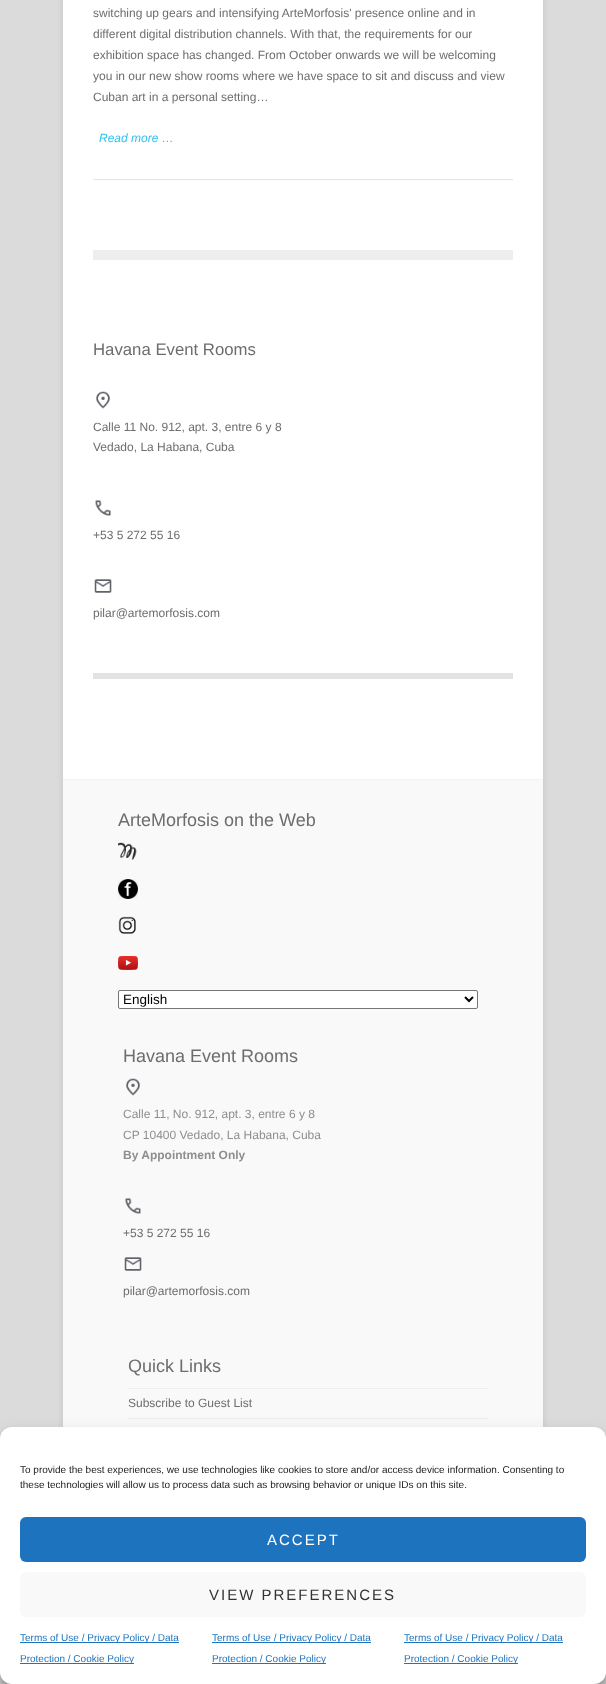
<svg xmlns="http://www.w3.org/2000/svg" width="606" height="1684">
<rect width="100%" height="100%" fill="#dbdbdb"/>
<rect x="63" y="-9" width="480" height="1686" fill="#0000001a" filter="blur(3px)"/>
<rect x="63" width="480" height="779" fill="#fff"/>
<rect x="93" y="179" width="420" height="1" fill="#e3e3e3"/>
<text x="93" y="17" style="font-family:Liberation Sans;font-size:12px;fill:#6d6d6b">switching up gears and intensifying ArteMorfosis' presence online and in</text>
<text x="93" y="38" style="font-family:Liberation Sans;font-size:12px;fill:#6d6d6b">different digital distribution channels. With that, the requirements for our</text>
<text x="93" y="59" style="font-family:Liberation Sans;font-size:12px;fill:#6d6d6b">exhibition space has changed. From October onwards we will be welcoming</text>
<text x="93" y="80" style="font-family:Liberation Sans;font-size:12px;fill:#6d6d6b">you in our new show rooms where we have space to sit and discuss and view</text>
<text x="93" y="101" style="font-family:Liberation Sans;font-size:12px;fill:#6d6d6b">Cuban art in a personal setting…</text>
<text x="99" y="142" style="font-family:Liberation Sans;font-size:12px;font-style:italic;fill:#2ec2f1">Read more …</text>
<rect x="93" y="250" width="420" height="10" fill="#eee"/>
<text x="93" y="355" style="font-family:Liberation Sans;font-size:16.75px;fill:#6d6d6b">Havana Event Rooms</text>
<image x="96" y="391" width="14" height="18" href="media/1.png"/>
<text x="93" y="431" style="font-family:Liberation Sans;font-size:12px;fill:#6d6d6b">Calle 11 No. 912, apt. 3, entre 6 y 8</text>
<text x="93" y="451" style="font-family:Liberation Sans;font-size:12px;fill:#6d6d6b">Vedado, La Habana, Cuba</text>
<image x="95" y="500" width="16" height="16" href="media/2.png"/>
<text x="93" y="539" style="font-family:Liberation Sans;font-size:12px;fill:#6d6d6b">+53 5 272 55 16</text>
<image x="94" y="579" width="18" height="14" href="media/3.png"/>
<text x="93" y="617" style="font-family:Liberation Sans;font-size:12px;fill:#6d6d6b">pilar@artemorfosis.com</text>
<rect x="93" y="673" width="420" height="6" fill="#e3e3e3"/>
<rect x="63" y="780" width="480" height="647" fill="#faf9f9"/>
<rect x="63" y="779" width="480" height="1" fill="#f3f2f2"/>
<text x="118" y="826" style="font-family:Liberation Sans;font-size:18px;fill:#6d6d6b">ArteMorfosis on the Web</text>
<image x="118" y="842" width="19" height="18" href="media/4.png"/>
<image x="118" y="879" width="20" height="20" href="media/5.png"/>
<image x="118" y="916" width="18" height="18" href="media/6.png"/>
<image x="118" y="956" width="20" height="14" href="media/7.png"/>
<rect x="118.5" y="990.5" width="359" height="18" rx="1.5" fill="#fff" stroke="#767676"/>
<path d="M465 997l4 4l4-4" fill="none" stroke="#000" stroke-width="2"/>
<text x="123" y="1004" style="font-family:Liberation Sans;font-size:13.5px;fill:#000">English</text>
<text x="123" y="1062" style="font-family:Liberation Sans;font-size:18px;fill:#6d6d6b">Havana Event Rooms</text>
<image x="126" y="1078" width="14" height="18" href="media/8.png"/>
<text x="123" y="1118" style="font-family:Liberation Sans;font-size:12px;fill:#8e8e8d">Calle 11, No. 912, apt. 3, entre 6 y 8</text>
<text x="123" y="1139" style="font-family:Liberation Sans;font-size:12px;fill:#8e8e8d">CP 10400 Vedado, La Habana, Cuba</text>
<text x="123" y="1159" style="font-family:Liberation Sans;font-size:12px;font-weight:bold;fill:#8e8e8d">By Appointment Only</text>
<image x="125" y="1198" width="16" height="16" href="media/9.png"/>
<text x="123" y="1237" style="font-family:Liberation Sans;font-size:12px;fill:#6d6d6b">+53 5 272 55 16</text>
<image x="124" y="1257" width="18" height="14" href="media/10.png"/>
<text x="123" y="1295" style="font-family:Liberation Sans;font-size:12px;fill:#6d6d6b">pilar@artemorfosis.com</text>
<text x="128" y="1372" style="font-family:Liberation Sans;font-size:18px;fill:#6d6d6b">Quick Links</text>
<rect x="128" y="1388" width="360" height="1" fill="#efeded"/>
<rect x="128" y="1418" width="360" height="1" fill="#efeded"/>
<text x="128" y="1407" style="font-family:Liberation Sans;font-size:12px;fill:#6d6d6b">Subscribe to Guest List</text>
<rect y="1433" width="606" height="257" rx="12" fill="#0000003b" filter="blur(3px)"/>
<rect y="1437" width="606" height="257" rx="12" fill="#00000030" filter="blur(10px)"/>
<rect y="1427" width="606" height="257" rx="12" fill="#fff"/>
<text x="20" y="1473" style="font-family:Liberation Sans;font-size:10px;fill:#222">To provide the best experiences, we use technologies like cookies to store and/or access device information. Consenting to</text>
<text x="20" y="1488" style="font-family:Liberation Sans;font-size:10px;fill:#222">these technologies will allow us to process data such as browsing behavior or unique IDs on this site.</text>
<rect x="20" y="1517" width="566" height="45" rx="6" fill="#1e73be"/>
<text x="267" y="1545" style="font-family:Liberation Sans;font-size:15px;letter-spacing:2px;fill:#fff">ACCEPT</text>
<rect x="20" y="1572" width="566" height="45" rx="6" fill="#f9f9f9"/>
<text x="209" y="1600" style="font-family:Liberation Sans;font-size:15px;letter-spacing:2px;fill:#333">VIEW PREFERENCES</text>
<rect x="20" y="1642" width="159" height="1" fill="#1e73be"/>
<text x="20" y="1641" style="font-family:Liberation Sans;font-size:10px;fill:#1e73be">Terms of Use / Privacy Policy / Data</text>
<rect x="20" y="1663" width="114" height="1" fill="#1e73be"/>
<text x="20" y="1662" style="font-family:Liberation Sans;font-size:10px;fill:#1e73be">Protection / Cookie Policy</text>
<rect x="212" y="1642" width="159" height="1" fill="#1e73be"/>
<text x="212" y="1641" style="font-family:Liberation Sans;font-size:10px;fill:#1e73be">Terms of Use / Privacy Policy / Data</text>
<rect x="212" y="1663" width="114" height="1" fill="#1e73be"/>
<text x="212" y="1662" style="font-family:Liberation Sans;font-size:10px;fill:#1e73be">Protection / Cookie Policy</text>
<rect x="404" y="1642" width="159" height="1" fill="#1e73be"/>
<text x="404" y="1641" style="font-family:Liberation Sans;font-size:10px;fill:#1e73be">Terms of Use / Privacy Policy / Data</text>
<rect x="404" y="1663" width="114" height="1" fill="#1e73be"/>
<text x="404" y="1662" style="font-family:Liberation Sans;font-size:10px;fill:#1e73be">Protection / Cookie Policy</text>
</svg>
